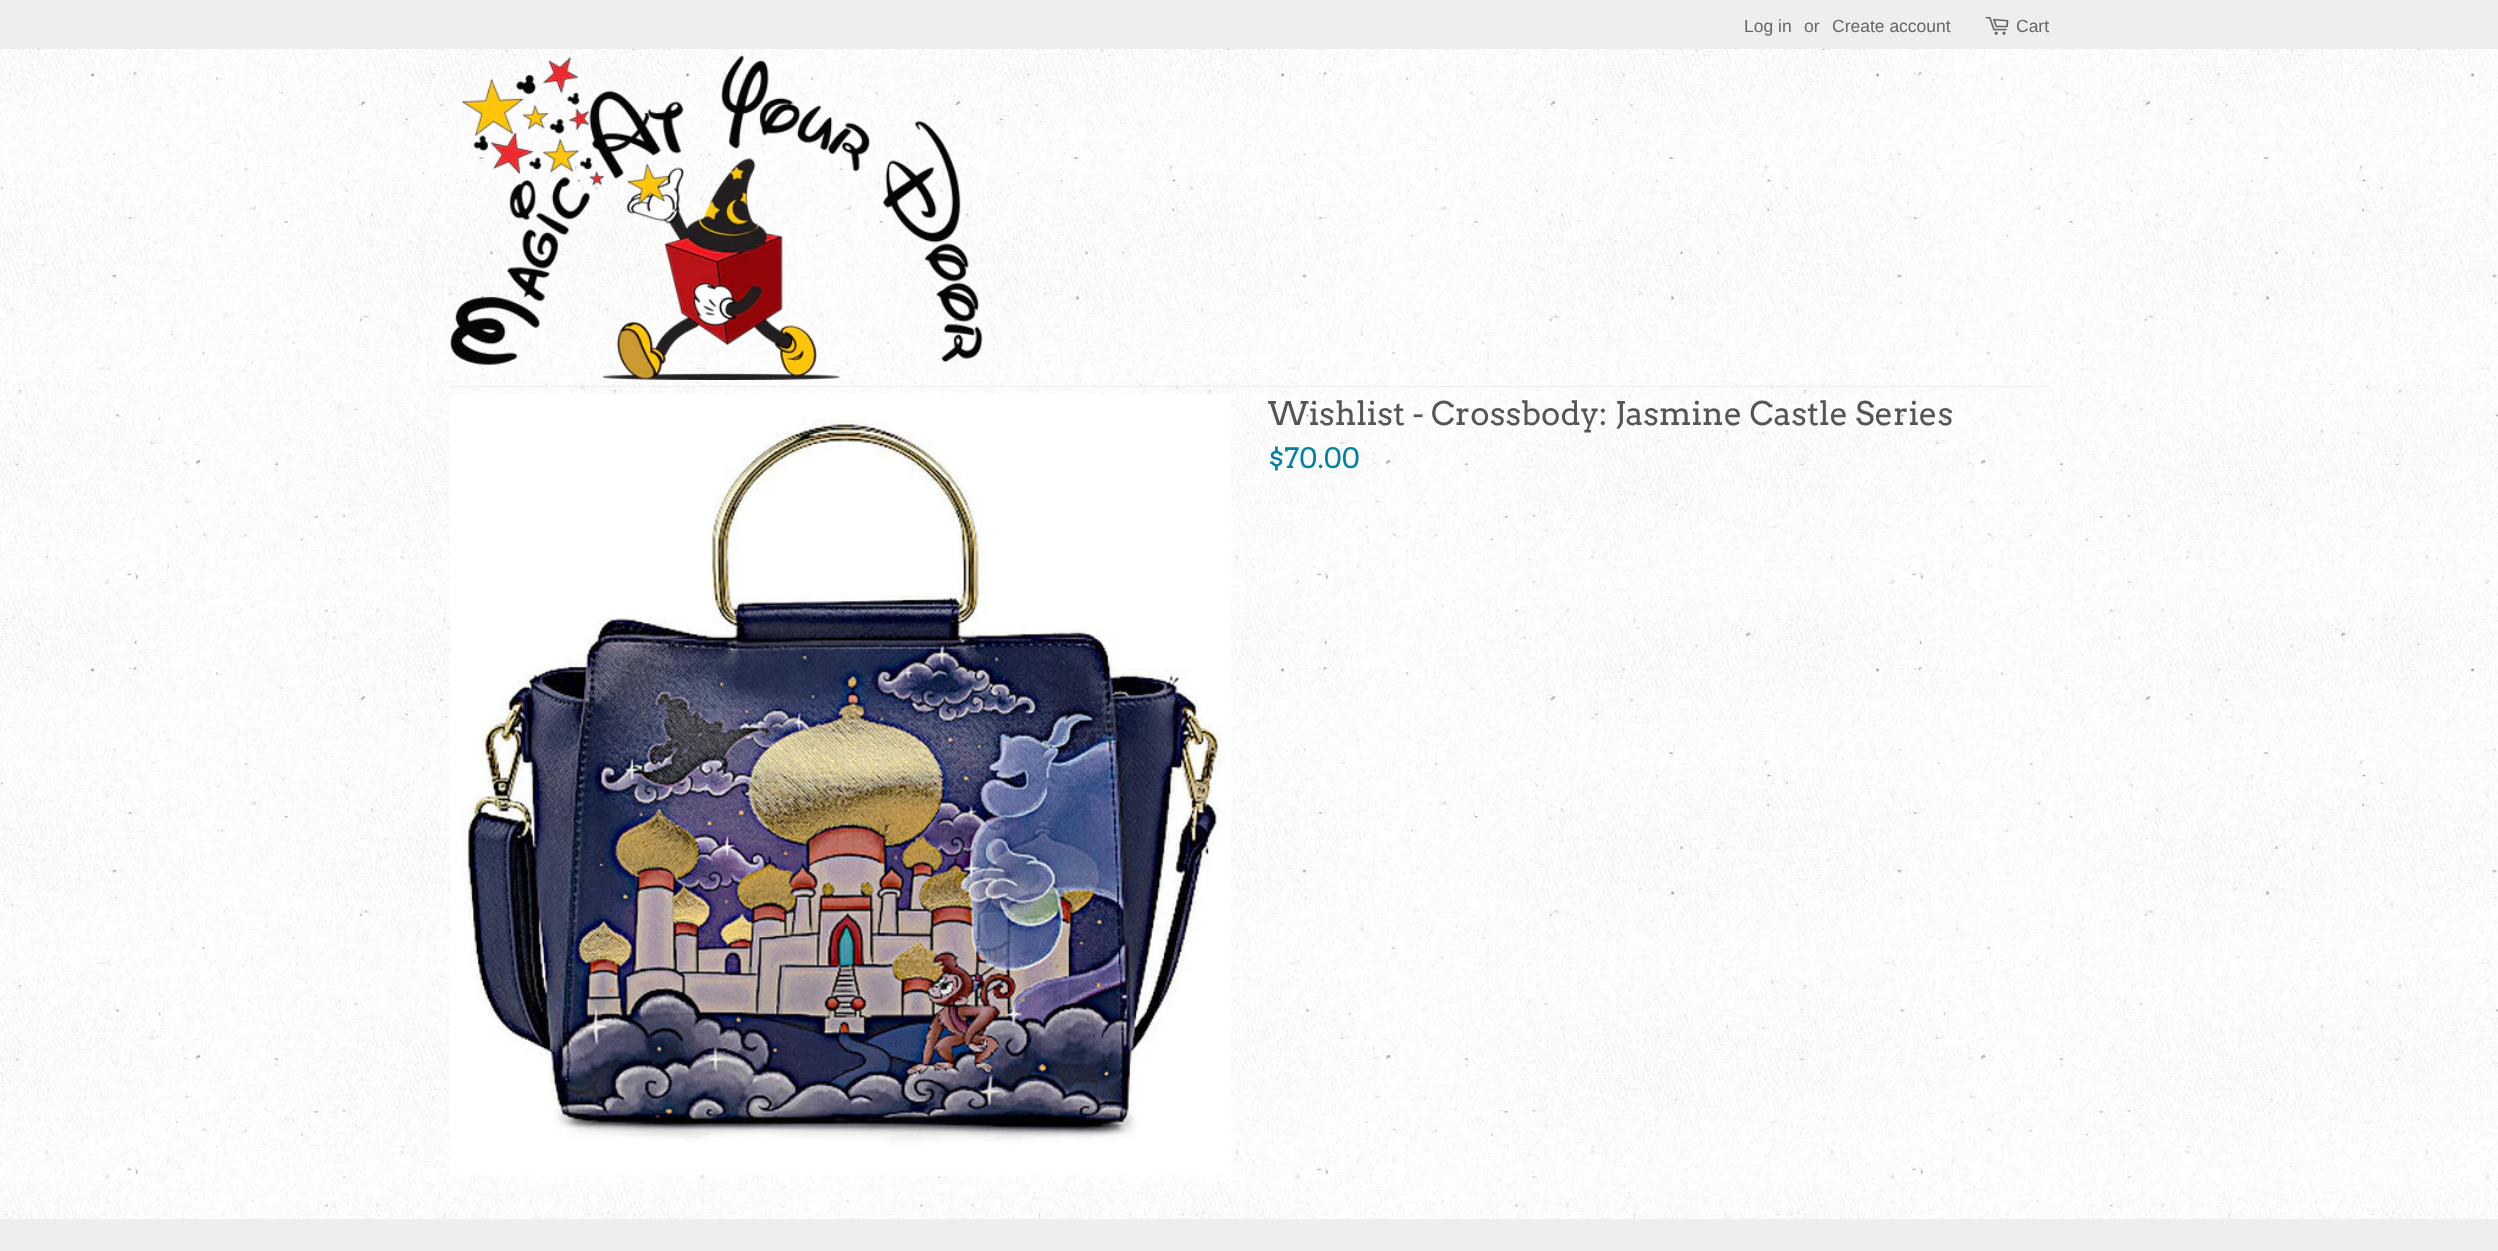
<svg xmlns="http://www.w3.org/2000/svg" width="2498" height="1251">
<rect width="100%" height="100%" fill="#fff"/>
<image x="0" y="49" width="2498" height="1170" href="media/1.png"/>
<rect width="2498" height="49" fill="#eee"/>
<text x="1744" y="32" style="font-family:Liberation Sans;font-size:17.5px;fill:#666">Log in</text>
<text x="1804" y="32" style="font-family:Liberation Sans;font-size:17.5px;fill:#666">or</text>
<text x="1832" y="32" style="font-family:Liberation Sans;font-size:17.5px;fill:#666">Create account</text>
<image x="1985" y="16" width="24" height="19" href="media/2.png"/>
<text x="2016" y="32" style="font-family:Liberation Sans;font-size:17.5px;fill:#666">Cart</text>
<rect x="450" y="386" width="1600" height="1" fill="#eee"/>
<image x="450" y="55" width="533" height="325" href="media/3.png"/>
<image x="450" y="393" width="782" height="782" href="media/4.png"/>
<text x="1268" y="425" style="font-family:Arvo;font-size:32.5px;fill:#555">Wishlist - Crossbody: Jasmine Castle Series</text>
<text x="1268" y="468" style="font-family:Arvo;font-size:28px;fill:#0081a3">$70.00</text>
<rect y="1219" width="2498" height="32" fill="#eee"/>
</svg>
